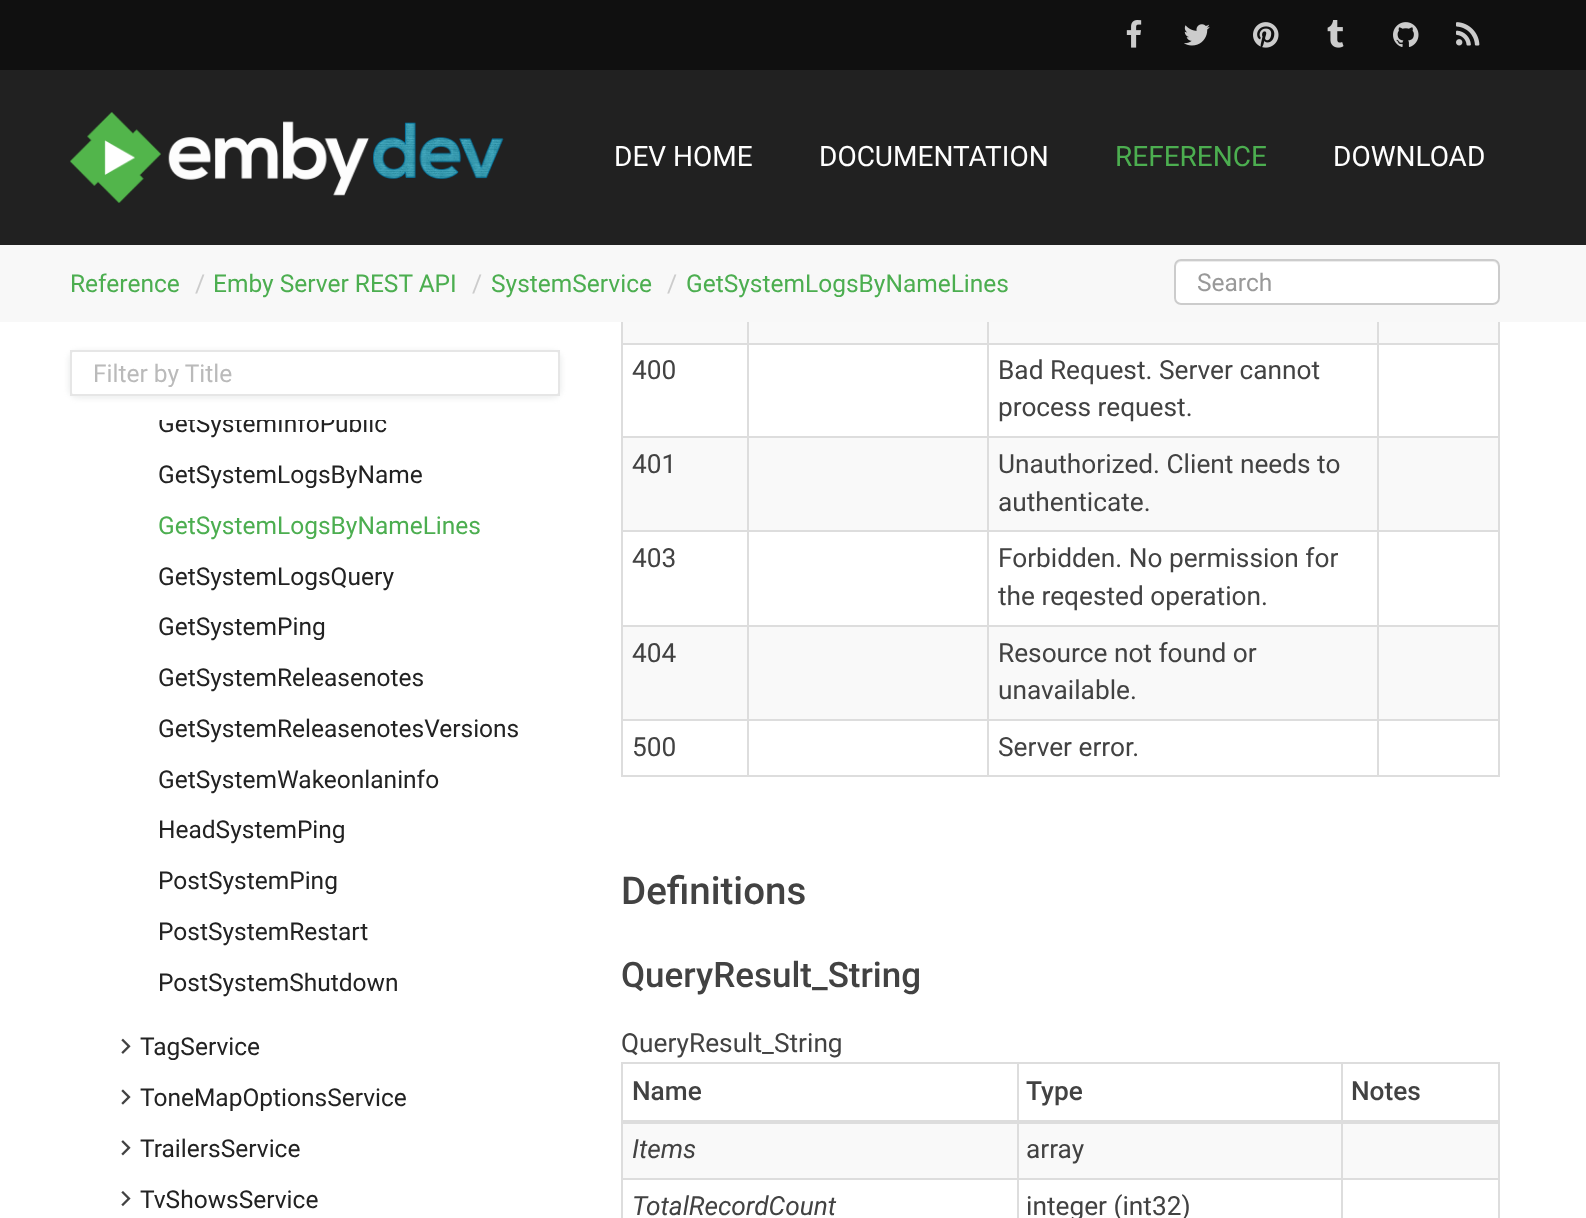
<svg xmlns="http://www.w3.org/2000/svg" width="1586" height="1218">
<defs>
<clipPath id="clip1"><path d="M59 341h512v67h-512zm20 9h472c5 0 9 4 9 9v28c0 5-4 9-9 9h-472c-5 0-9-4-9-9v-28c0-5 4-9 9-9z" clip-rule="evenodd"/></clipPath>
<clipPath id="clip2"><rect x="93" y="359" width="444" height="28"/></clipPath>
<clipPath id="clip3"><rect x="70" y="420" width="490" height="798"/></clipPath>
</defs>
<rect width="100%" height="100%" fill="#fff"/>
<rect y="70" width="1586" height="175" fill="#212121"/>
<rect width="1586" height="70" fill="#101010"/>
<image x="1126" y="20" width="16" height="28" href="media/1.png"/>
<image x="1184" y="24" width="26" height="22" href="media/2.png"/>
<image x="1253" y="22" width="26" height="26" href="media/3.png"/>
<image x="1327" y="20" width="17" height="28" href="media/4.png"/>
<image x="1393" y="22" width="26" height="25" href="media/5.png"/>
<image x="1456" y="22" width="24" height="24" href="media/6.png"/>
<image x="70" y="112" width="434" height="91" href="media/7.png"/>
<text x="614" y="166" style="font-family:Roboto;font-size:28px;fill:#fefefe">DEV HOME</text>
<text x="819" y="166" style="font-family:Roboto;font-size:28px;fill:#fefefe">DOCUMENTATION</text>
<text x="1115" y="166" style="font-family:Roboto;font-size:28px;fill:#4cae50">REFERENCE</text>
<text x="1333" y="166" style="font-family:Roboto;font-size:28px;fill:#fefefe">DOWNLOAD</text>
<rect y="245" width="1586" height="77" fill="#f8f8f8"/>
<text x="70" y="292" style="font-family:Roboto;font-size:24.5px;fill:#4cae50">Reference</text>
<text x="195" y="292" style="font-family:Roboto;font-size:24.5px;fill:#ccc">/</text>
<text x="213" y="292" style="font-family:Roboto;font-size:24.5px;fill:#4cae50">Emby Server REST API</text>
<text x="472" y="292" style="font-family:Roboto;font-size:24.5px;fill:#ccc">/</text>
<text x="491" y="292" style="font-family:Roboto;font-size:24.5px;fill:#4cae50">SystemService</text>
<text x="667" y="292" style="font-family:Roboto;font-size:24.5px;fill:#ccc">/</text>
<text x="686" y="292" style="font-family:Roboto;font-size:24.5px;fill:#4cae50">GetSystemLogsByNameLines</text>
<rect x="1174" y="259" width="326" height="46" rx="7" fill="#fff"/>
<path d="M1181 262h312c3 0 5 3 5 6v-2c0-3-2-5-5-5h-312c-3 0-5 2-5 5v2c0-3 2-6 5-6z" fill="#ececec"/>
<rect x="1175" y="260" width="324" height="44" rx="6" fill="none" stroke="#ccc" stroke-width="2"/>
<text x="1197" y="291" style="font-family:Roboto;font-size:24.5px;fill:#999">Search</text>
<g clip-path="url(#clip1)">
<rect x="68" y="350" width="494" height="49" rx="11" fill="#9ea0a229" filter="blur(2.5px)"/>
</g>
<rect x="71" y="351" width="488" height="44" fill="none" stroke="#e6e6e6" stroke-width="2"/>
<g clip-path="url(#clip2)">
<text x="93" y="382" style="font-family:Roboto;font-size:24.5px;fill:#bababa">Filter by Title</text>
</g>
<g clip-path="url(#clip3)">
<text x="158" y="432" style="font-family:Roboto;font-size:24.5px;fill:#222">GetSystemInfoPublic</text>
</g>
<text x="158" y="483" style="font-family:Roboto;font-size:24.5px;fill:#222">GetSystemLogsByName</text>
<text x="158" y="534" style="font-family:Roboto;font-size:24.5px;fill:#4cae50">GetSystemLogsByNameLines</text>
<text x="158" y="585" style="font-family:Roboto;font-size:24.5px;fill:#222">GetSystemLogsQuery</text>
<text x="158" y="635" style="font-family:Roboto;font-size:24.5px;fill:#222">GetSystemPing</text>
<text x="158" y="686" style="font-family:Roboto;font-size:24.5px;fill:#222">GetSystemReleasenotes</text>
<text x="158" y="737" style="font-family:Roboto;font-size:24.5px;fill:#222">GetSystemReleasenotesVersions</text>
<text x="158" y="788" style="font-family:Roboto;font-size:24.5px;fill:#222">GetSystemWakeonlaninfo</text>
<text x="158" y="838" style="font-family:Roboto;font-size:24.5px;fill:#222">HeadSystemPing</text>
<text x="158" y="889" style="font-family:Roboto;font-size:24.5px;fill:#222">PostSystemPing</text>
<text x="158" y="940" style="font-family:Roboto;font-size:24.5px;fill:#222">PostSystemRestart</text>
<text x="158" y="991" style="font-family:Roboto;font-size:24.5px;fill:#222">PostSystemShutdown</text>
<image x="121" y="1038" width="10" height="16" href="media/8.png"/>
<text x="140" y="1055" style="font-family:Roboto;font-size:24.5px;fill:#222">TagService</text>
<image x="121" y="1089" width="10" height="16" href="media/9.png"/>
<text x="140" y="1106" style="font-family:Roboto;font-size:24.5px;fill:#222">ToneMapOptionsService</text>
<image x="121" y="1140" width="10" height="16" href="media/10.png"/>
<text x="140" y="1157" style="font-family:Roboto;font-size:24.5px;fill:#222">TrailersService</text>
<image x="121" y="1191" width="10" height="16" href="media/11.png"/>
<text x="140" y="1208" style="font-family:Roboto;font-size:24.5px;fill:#222">TvShowsService</text>
<rect x="1498" y="322" width="2" height="455" fill="#ddd"/>
<rect x="621" y="775" width="879" height="2" fill="#ddd"/>
<rect x="621" y="322" width="2" height="455" fill="#ddd"/>
<rect x="623" y="322" width="875" height="21" fill="#f9f9f9"/>
<rect x="1377" y="343" width="123" height="2" fill="#ddd"/>
<rect x="1377" y="436" width="123" height="2" fill="#ddd"/>
<rect x="623" y="438" width="875" height="92" fill="#f9f9f9"/>
<rect x="1377" y="530" width="123" height="2" fill="#ddd"/>
<rect x="1377" y="625" width="123" height="2" fill="#ddd"/>
<rect x="623" y="627" width="875" height="92" fill="#f9f9f9"/>
<rect x="1377" y="719" width="123" height="2" fill="#ddd"/>
<rect x="1377" y="719" width="2" height="58" fill="#ddd"/>
<rect x="987" y="719" width="392" height="2" fill="#ddd"/>
<rect x="1377" y="625" width="2" height="96" fill="#ddd"/>
<rect x="987" y="625" width="392" height="2" fill="#ddd"/>
<rect x="1377" y="530" width="2" height="97" fill="#ddd"/>
<rect x="987" y="530" width="392" height="2" fill="#ddd"/>
<rect x="1377" y="436" width="2" height="96" fill="#ddd"/>
<rect x="987" y="436" width="392" height="2" fill="#ddd"/>
<rect x="1377" y="343" width="2" height="95" fill="#ddd"/>
<rect x="987" y="343" width="392" height="2" fill="#ddd"/>
<rect x="987" y="719" width="2" height="58" fill="#ddd"/>
<rect x="747" y="719" width="242" height="2" fill="#ddd"/>
<rect x="987" y="625" width="2" height="96" fill="#ddd"/>
<rect x="747" y="625" width="242" height="2" fill="#ddd"/>
<rect x="987" y="530" width="2" height="97" fill="#ddd"/>
<rect x="747" y="530" width="242" height="2" fill="#ddd"/>
<rect x="987" y="436" width="2" height="96" fill="#ddd"/>
<rect x="747" y="436" width="242" height="2" fill="#ddd"/>
<rect x="987" y="343" width="2" height="95" fill="#ddd"/>
<rect x="747" y="343" width="242" height="2" fill="#ddd"/>
<rect x="747" y="719" width="2" height="58" fill="#ddd"/>
<rect x="621" y="719" width="128" height="2" fill="#ddd"/>
<rect x="747" y="625" width="2" height="96" fill="#ddd"/>
<rect x="621" y="625" width="128" height="2" fill="#ddd"/>
<rect x="747" y="530" width="2" height="97" fill="#ddd"/>
<rect x="621" y="530" width="128" height="2" fill="#ddd"/>
<rect x="747" y="436" width="2" height="96" fill="#ddd"/>
<rect x="621" y="436" width="128" height="2" fill="#ddd"/>
<rect x="747" y="343" width="2" height="95" fill="#ddd"/>
<rect x="621" y="343" width="128" height="2" fill="#ddd"/>
<rect x="747" y="322" width="2" height="23" fill="#ddd"/>
<rect x="987" y="322" width="2" height="23" fill="#ddd"/>
<rect x="1377" y="322" width="2" height="23" fill="#ddd"/>
<text x="632" y="379" style="font-family:Roboto;font-size:26.25px;fill:#424242">400</text>
<text x="998" y="379" style="font-family:Roboto;font-size:26.25px;fill:#424242">Bad Request. Server cannot</text>
<text x="998" y="416" style="font-family:Roboto;font-size:26.25px;fill:#424242">process request.</text>
<text x="632" y="473" style="font-family:Roboto;font-size:26.25px;fill:#424242">401</text>
<text x="998" y="473" style="font-family:Roboto;font-size:26.25px;fill:#424242">Unauthorized. Client needs to</text>
<text x="998" y="511" style="font-family:Roboto;font-size:26.25px;fill:#424242">authenticate.</text>
<text x="632" y="567" style="font-family:Roboto;font-size:26.25px;fill:#424242">403</text>
<text x="998" y="567" style="font-family:Roboto;font-size:26.25px;fill:#424242">Forbidden. No permission for</text>
<text x="998" y="605" style="font-family:Roboto;font-size:26.25px;fill:#424242">the reqested operation.</text>
<text x="632" y="662" style="font-family:Roboto;font-size:26.25px;fill:#424242">404</text>
<text x="998" y="662" style="font-family:Roboto;font-size:26.25px;fill:#424242">Resource not found or</text>
<text x="998" y="699" style="font-family:Roboto;font-size:26.25px;fill:#424242">unavailable.</text>
<text x="632" y="756" style="font-family:Roboto;font-size:26.25px;fill:#424242">500</text>
<text x="998" y="756" style="font-family:Roboto;font-size:26.25px;fill:#424242">Server error.</text>
<text x="621" y="904" style="font-family:Roboto;font-size:38.5px;font-weight:500;fill:#424242">Definitions</text>
<text x="621" y="987" style="font-family:Roboto;font-size:35px;font-weight:500;fill:#424242">QueryResult_String</text>
<text x="621" y="1052" style="font-family:Roboto;font-size:26.25px;fill:#424242">QueryResult_String</text>
<rect x="621" y="1062" width="879" height="2" fill="#ddd"/>
<rect x="1498" y="1062" width="2" height="156" fill="#ddd"/>
<rect x="621" y="1062" width="2" height="156" fill="#ddd"/>
<text x="632" y="1100" style="font-family:Roboto;font-size:26.25px;font-weight:500;fill:#424242">Name</text>
<text x="1026" y="1100" style="font-family:Roboto;font-size:26.25px;font-weight:500;fill:#424242">Type</text>
<rect x="623" y="1124" width="875" height="54" fill="#f9f9f9"/>
<rect x="1341" y="1178" width="159" height="2" fill="#ddd"/>
<rect x="1341" y="1178" width="2" height="40" fill="#ddd"/>
<rect x="1017" y="1178" width="325" height="2" fill="#ddd"/>
<rect x="1017" y="1178" width="2" height="40" fill="#ddd"/>
<rect x="621" y="1178" width="398" height="2" fill="#ddd"/>
<rect x="1017" y="1062" width="2" height="118" fill="#ddd"/>
<rect x="1341" y="1062" width="2" height="118" fill="#ddd"/>
<rect x="621" y="1120" width="879" height="4" fill="#ddd"/>
<text x="1351" y="1100" style="font-family:Roboto;font-size:26.25px;font-weight:500;fill:#424242">Notes</text>
<text x="632" y="1158" style="font-family:Roboto;font-size:26.25px;font-style:italic;fill:#424242">Items</text>
<text x="1026" y="1158" style="font-family:Roboto;font-size:26.25px;fill:#424242">array</text>
<text x="632" y="1215" style="font-family:Roboto;font-size:26.25px;font-style:italic;fill:#424242">TotalRecordCount</text>
<text x="1026" y="1215" style="font-family:Roboto;font-size:26.25px;fill:#424242">integer (int32)</text>
</svg>
